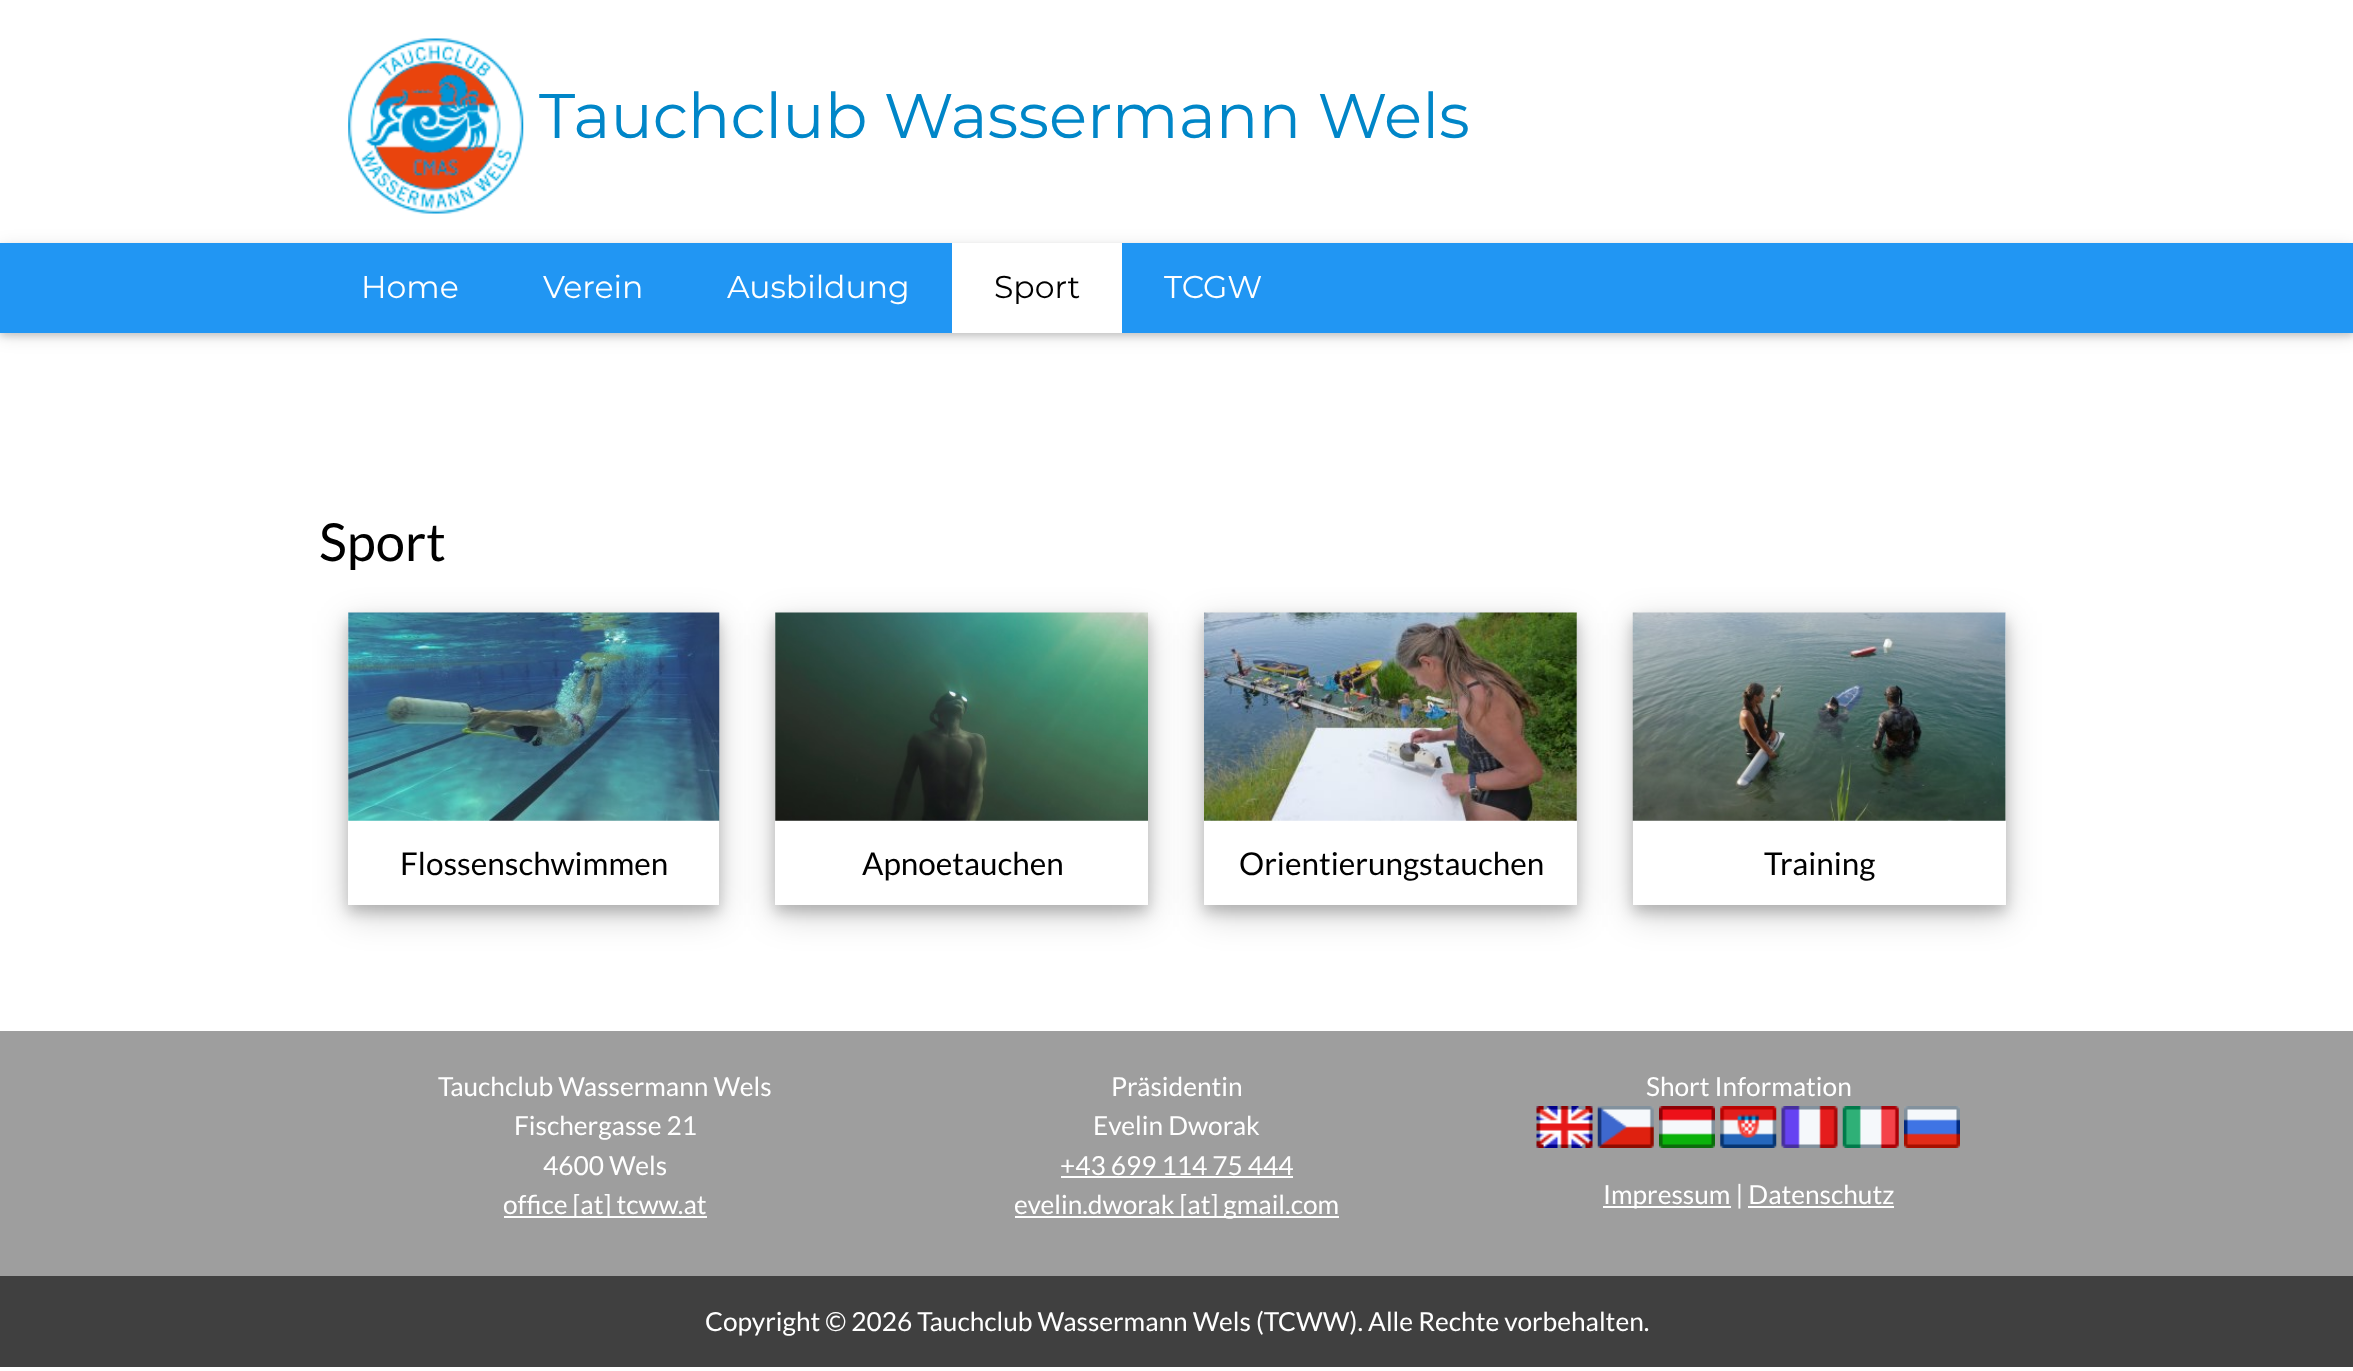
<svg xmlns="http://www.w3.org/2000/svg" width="2353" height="1371">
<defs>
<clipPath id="clip1"><path d="M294 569h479v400h-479zm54 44h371v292h-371z" clip-rule="evenodd"/></clipPath>
<clipPath id="clip2"><path d="M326 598h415v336h-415zm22 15h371v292h-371z" clip-rule="evenodd"/></clipPath>
<clipPath id="clip3"><path d="M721 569h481v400h-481zm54 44h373v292h-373z" clip-rule="evenodd"/></clipPath>
<clipPath id="clip4"><path d="M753 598h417v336h-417zm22 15h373v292h-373z" clip-rule="evenodd"/></clipPath>
<clipPath id="clip5"><path d="M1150 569h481v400h-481zm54 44h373v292h-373z" clip-rule="evenodd"/></clipPath>
<clipPath id="clip6"><path d="M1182 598h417v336h-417zm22 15h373v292h-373z" clip-rule="evenodd"/></clipPath>
<clipPath id="clip7"><path d="M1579 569h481v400h-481zm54 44h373v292h-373z" clip-rule="evenodd"/></clipPath>
<clipPath id="clip8"><path d="M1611 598h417v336h-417zm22 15h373v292h-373z" clip-rule="evenodd"/></clipPath>
</defs>
<rect width="100%" height="100%" fill="#fff"/>
<image x="348" y="38" width="176" height="176" href="media/1.png"/>
<text x="539" y="138" style="font-family:Montserrat;font-size:63px;font-weight:100;fill:#0086c8">Tauchclub Wassermann Wels</text>
<rect y="247" width="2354" height="89" fill="#0000001f" filter="blur(9px)"/>
<rect y="247" width="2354" height="89" fill="#00000029" filter="blur(3.5px)"/>
<rect y="243" width="2353" height="90" fill="#2196f3"/>
<text x="361" y="298" style="font-family:Montserrat;font-size:31.5px;font-weight:100;fill:#fff">Home</text>
<text x="543" y="298" style="font-family:Montserrat;font-size:31.5px;font-weight:100;fill:#fff">Verein</text>
<text x="727" y="298" style="font-family:Montserrat;font-size:31.5px;font-weight:100;fill:#fff">Ausbildung</text>
<rect x="952" y="243" width="170" height="90" fill="#fff"/>
<text x="994" y="298" style="font-family:Montserrat;font-size:31.5px;font-weight:100;fill:#000">Sport</text>
<text x="1164" y="298" style="font-family:Montserrat;font-size:31.5px;font-weight:100;fill:#fff">TCGW</text>
<g clip-path="url(#clip1)">
<rect x="348" y="623" width="371" height="292" fill="#00000030" filter="blur(17.5px)"/>
</g>
<text x="319" y="561" style="font-family:Lato;font-size:52.5px;fill:#000">Sport</text>
<g clip-path="url(#clip2)">
<rect x="348" y="620" width="371" height="292" fill="#00000033" filter="blur(7px)"/>
</g>
<image x="348" y="612" width="372" height="209" href="media/2.png"/>
<text x="400" y="875" style="font-family:Lato;font-size:31.5px;fill:#000">Flossenschwimmen</text>
<g clip-path="url(#clip3)">
<rect x="775" y="623" width="373" height="292" fill="#00000030" filter="blur(17.5px)"/>
</g>
<g clip-path="url(#clip4)">
<rect x="775" y="620" width="373" height="292" fill="#00000033" filter="blur(7px)"/>
</g>
<image x="775" y="612" width="373" height="209" href="media/3.png"/>
<text x="862" y="875" style="font-family:Lato;font-size:31.5px;fill:#000">Apnoetauchen</text>
<g clip-path="url(#clip5)">
<rect x="1204" y="623" width="373" height="292" fill="#00000030" filter="blur(17.5px)"/>
</g>
<g clip-path="url(#clip6)">
<rect x="1204" y="620" width="373" height="292" fill="#00000033" filter="blur(7px)"/>
</g>
<image x="1204" y="612" width="373" height="209" href="media/4.png"/>
<text x="1239" y="875" style="font-family:Lato;font-size:31.5px;fill:#000">Orientierungstauchen</text>
<g clip-path="url(#clip7)">
<rect x="1633" y="623" width="373" height="292" fill="#00000030" filter="blur(17.5px)"/>
</g>
<g clip-path="url(#clip8)">
<rect x="1633" y="620" width="373" height="292" fill="#00000033" filter="blur(7px)"/>
</g>
<image x="1632" y="612" width="374" height="209" href="media/5.png"/>
<text x="1764" y="875" style="font-family:Lato;font-size:31.5px;fill:#000">Training</text>
<rect y="1031" width="2353" height="245" fill="#9e9e9e"/>
<text x="438" y="1096" style="font-family:Lato;font-size:26.25px;fill:#fff">Tauchclub Wassermann Wels</text>
<text x="514" y="1135" style="font-family:Lato;font-size:26.25px;fill:#fff">Fischergasse 21</text>
<text x="543" y="1175" style="font-family:Lato;font-size:26.25px;fill:#fff">4600 Wels</text>
<rect x="504" y="1216" width="203" height="2" fill="#fff"/>
<text x="503" y="1214" style="font-family:Lato;font-size:26.25px;fill:#fff">office [at] tcww.at</text>
<text x="1111" y="1096" style="font-family:Lato;font-size:26.25px;fill:#fff">Präsidentin</text>
<text x="1093" y="1135" style="font-family:Lato;font-size:26.25px;fill:#fff">Evelin Dworak</text>
<text x="1060" y="1175" style="font-family:Lato;font-size:26.25px;fill:#fff">+43 699 114 75 444</text>
<rect x="1061" y="1176" width="232" height="2" fill="#fff"/>
<rect x="1015" y="1216" width="324" height="2" fill="#fff"/>
<text x="1014" y="1214" style="font-family:Lato;font-size:26.25px;fill:#fff">evelin.dworak [at] gmail.com</text>
<text x="1646" y="1096" style="font-family:Lato;font-size:26.25px;fill:#fff">Short Information</text>
<image x="1536" y="1106" width="57" height="42" href="media/6.png"/>
<image x="1597" y="1106" width="57" height="42" href="media/7.png"/>
<image x="1659" y="1106" width="56" height="42" href="media/8.png"/>
<image x="1720" y="1106" width="57" height="42" href="media/9.png"/>
<image x="1781" y="1106" width="57" height="42" href="media/10.png"/>
<image x="1842" y="1106" width="57" height="42" href="media/11.png"/>
<image x="1904" y="1106" width="56" height="42" href="media/12.png"/>
<rect x="1603" y="1206" width="128" height="2" fill="#fff"/>
<text x="1603" y="1204" style="font-family:Lato;font-size:26.25px;fill:#fff">Impressum | Datenschutz</text>
<rect x="1748" y="1206" width="146" height="2" fill="#fff"/>
<rect y="1276" width="2353" height="91" fill="#404040"/>
<text x="705" y="1331" style="font-family:Lato;font-size:26.25px;fill:#fff">Copyright © 2026 Tauchclub Wassermann Wels (TCWW). Alle Rechte vorbehalten.</text>
</svg>
